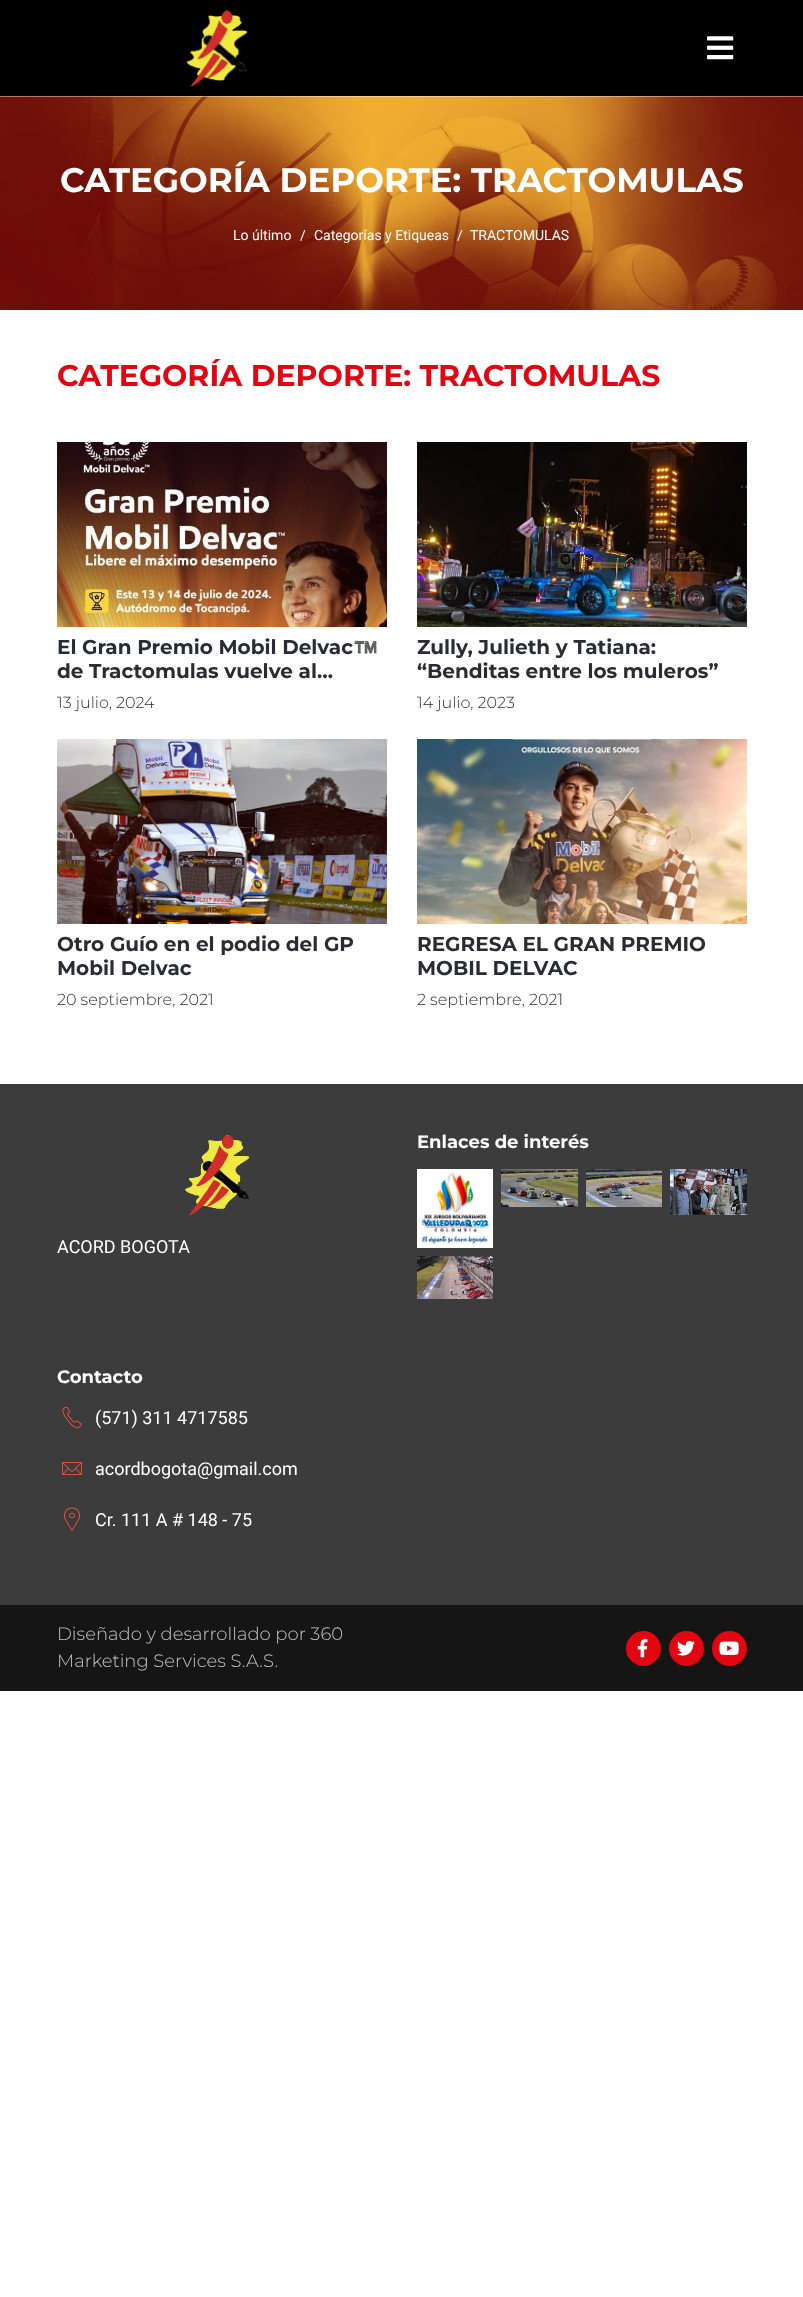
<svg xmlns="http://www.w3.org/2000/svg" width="803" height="2297">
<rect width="100%" height="100%" fill="#fff"/>
<rect width="803" height="96" fill="#000"/>
<image x="187" y="10" width="61" height="77" href="media/1.png"/>
<image x="707" y="36" width="27" height="24" href="media/2.png"/>
<image x="0" y="96" width="803" height="214" href="media/3.png"/>
<text x="60" y="192" style="font-family:Montserrat;font-size:34px;font-weight:bold;fill:#fff">CATEGORÍA DEPORTE: TRACTOMULAS</text>
<text x="233" y="240" style="font-family:Roboto;font-size:14px;fill:#fff">Lo último</text>
<text x="300" y="240" style="font-family:Roboto;font-size:14px;fill:#fff">/</text>
<text x="314" y="240" style="font-family:Roboto;font-size:14px;fill:#fff">Categorías y Etiqueas</text>
<text x="457" y="240" style="font-family:Roboto;font-size:14px;fill:#fff">/</text>
<text x="470" y="240" style="font-family:Roboto;font-size:14px;fill:#fff">TRACTOMULAS</text>
<text x="57" y="386" style="font-family:Montserrat;font-size:30px;font-weight:bold;fill:#e20613">CATEGORÍA DEPORTE: TRACTOMULAS</text>
<image x="57" y="442" width="330" height="185" href="media/4.png"/>
<text x="57" y="654" style="font-family:Montserrat;font-size:20px;font-weight:bold;fill:#292c32">El Gran Premio Mobil Delvac</text>
<text x="353" y="654" style="font-family:Noto Color Emoji;font-size:20px;font-weight:bold;fill:#292c32">™️</text>
<text x="57" y="678" style="font-family:Montserrat;font-size:20px;font-weight:bold;fill:#292c32">de Tractomulas vuelve al…</text>
<text x="57" y="708" style="font-family:Montserrat;font-size:16px;font-weight:300;fill:#292c32">13 julio, 2024</text>
<image x="417" y="442" width="330" height="185" href="media/5.png"/>
<text x="417" y="654" style="font-family:Montserrat;font-size:20px;font-weight:bold;fill:#292c32">Zully, Julieth y Tatiana:</text>
<text x="417" y="678" style="font-family:Montserrat;font-size:20px;font-weight:bold;fill:#292c32">“Benditas entre los muleros”</text>
<text x="417" y="708" style="font-family:Montserrat;font-size:16px;font-weight:300;fill:#292c32">14 julio, 2023</text>
<image x="57" y="739" width="330" height="185" href="media/6.png"/>
<text x="57" y="951" style="font-family:Montserrat;font-size:20px;font-weight:bold;fill:#292c32">Otro Guío en el podio del GP</text>
<text x="57" y="975" style="font-family:Montserrat;font-size:20px;font-weight:bold;fill:#292c32">Mobil Delvac</text>
<text x="57" y="1005" style="font-family:Montserrat;font-size:16px;font-weight:300;fill:#292c32">20 septiembre, 2021</text>
<image x="417" y="739" width="330" height="185" href="media/7.png"/>
<text x="417" y="951" style="font-family:Montserrat;font-size:20px;font-weight:bold;fill:#292c32">REGRESA EL GRAN PREMIO</text>
<text x="417" y="975" style="font-family:Montserrat;font-size:20px;font-weight:bold;fill:#292c32">MOBIL DELVAC</text>
<text x="417" y="1005" style="font-family:Montserrat;font-size:16px;font-weight:300;fill:#292c32">2 septiembre, 2021</text>
<rect y="1084" width="803" height="521" fill="#3c3c3c"/>
<text x="417" y="1148" style="font-family:Montserrat;font-size:18px;font-weight:bold;fill:#fff">Enlaces de interés</text>
<image x="417" y="1169" width="76" height="79" href="media/8.png"/>
<image x="501" y="1169" width="77" height="38" href="media/9.png"/>
<image x="586" y="1169" width="76" height="38" href="media/10.png"/>
<image x="670" y="1169" width="77" height="46" href="media/11.png"/>
<image x="417" y="1256" width="76" height="43" href="media/12.png"/>
<image x="185" y="1134" width="65" height="82" href="media/13.png"/>
<text x="57" y="1253" style="font-family:Roboto;font-size:18px;fill:#fff">ACORD BOGOTA</text>
<text x="57" y="1383" style="font-family:Montserrat;font-size:18px;font-weight:bold;fill:#fff">Contacto</text>
<image x="62" y="1406" width="20" height="23" href="media/14.png"/>
<text x="95" y="1424" style="font-family:Roboto;font-size:18px;fill:#fff">(571) 311 4717585</text>
<image x="62" y="1462" width="20" height="13" href="media/15.png"/>
<text x="95" y="1475" style="font-family:Roboto;font-size:18px;fill:#fff">acordbogota@gmail.com</text>
<image x="64" y="1507" width="16" height="25" href="media/16.png"/>
<text x="95" y="1526" style="font-family:Roboto;font-size:18px;fill:#fff">Cr. 111 A # 148 - 75</text>
<rect y="1605" width="803" height="86" fill="#151515"/>
<text x="57" y="1640" style="font-family:Montserrat;font-size:18px;font-weight:300;fill:#c1c5c8">Diseñado y desarrollado por 360</text>
<text x="57" y="1667" style="font-family:Montserrat;font-size:18px;font-weight:300;fill:#c1c5c8">Marketing Services S.A.S.</text>
<circle cx="643.5" cy="1648.5" r="17.5" fill="#e20613"/>
<image x="637" y="1639" width="11" height="19" href="media/17.png"/>
<circle cx="686.5" cy="1648.5" r="17.5" fill="#e20613"/>
<image x="677" y="1640" width="18" height="16" href="media/18.png"/>
<circle cx="729.5" cy="1648.5" r="17.5" fill="#e20613"/>
<image x="719" y="1641" width="20" height="14" href="media/19.png"/>
</svg>
